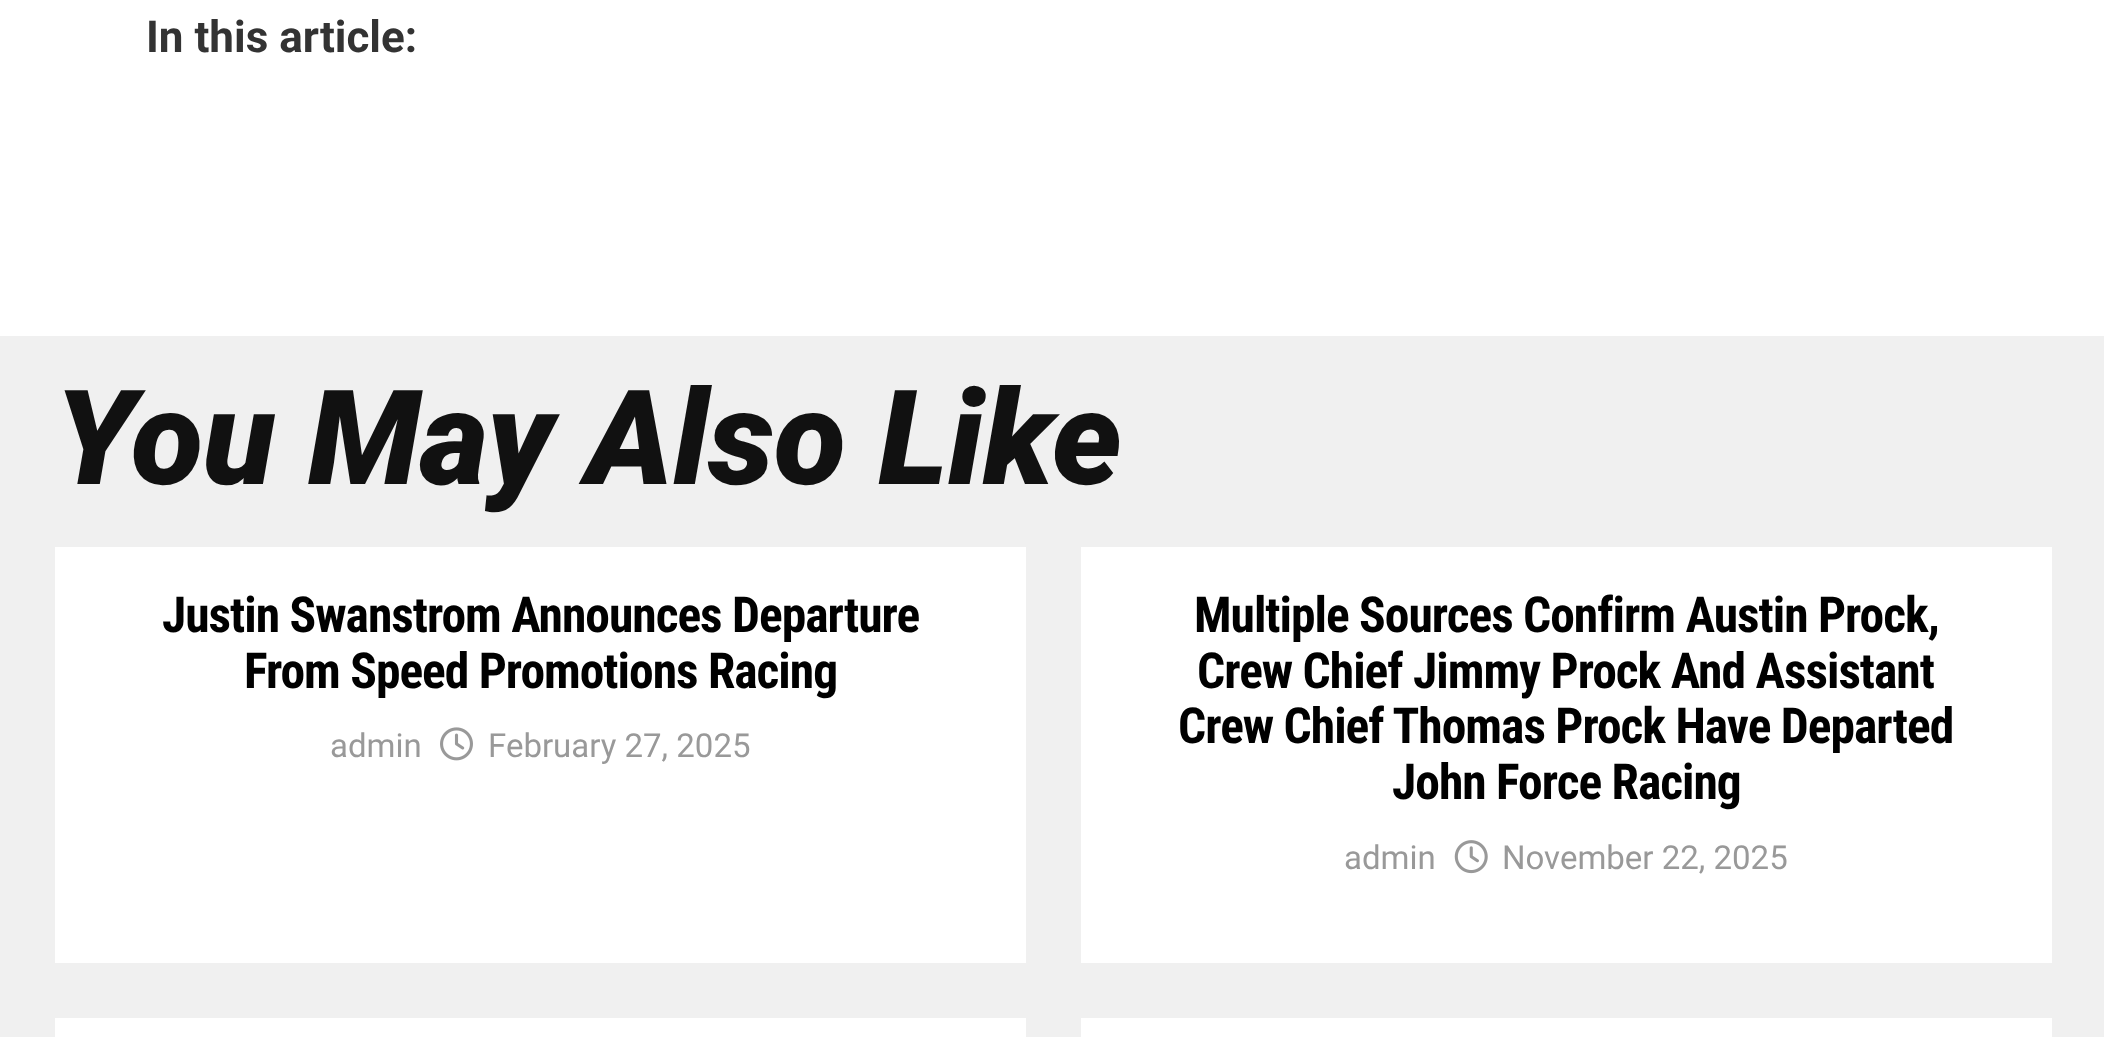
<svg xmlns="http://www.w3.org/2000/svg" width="2104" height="1037">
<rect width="100%" height="100%" fill="#f0f0f0"/>
<rect width="2104" height="336" fill="#fff"/>
<text x="146" y="52" style="font-family:Roboto;font-size:44px;font-weight:bold;fill:#333">In this article:</text>
<text x="55" y="484" style="font-family:Roboto;font-size:132px;font-weight:900;font-style:italic;fill:#111">You May Also Like</text>
<rect x="55" y="547" width="971" height="416" fill="#fff"/>
<text x="162" y="632" style="font-family:Roboto Condensed;font-size:49.5px;font-weight:bold;letter-spacing:-1px;fill:#000">Justin Swanstrom Announces Departure</text>
<text x="244" y="688" style="font-family:Roboto Condensed;font-size:49.5px;font-weight:bold;letter-spacing:-1px;fill:#000">From Speed Promotions Racing</text>
<text x="330" y="757" style="font-family:Roboto;font-size:33px;fill:#999">admin</text>
<image x="440" y="727" width="33" height="34" href="media/1.png"/>
<text x="488" y="757" style="font-family:Roboto;font-size:33px;fill:#999">February 27, 2025</text>
<rect x="1081" y="547" width="971" height="416" fill="#fff"/>
<text x="1194" y="632" style="font-family:Roboto Condensed;font-size:49.5px;font-weight:bold;letter-spacing:-1px;fill:#000">Multiple Sources Confirm Austin Prock,</text>
<text x="1197" y="688" style="font-family:Roboto Condensed;font-size:49.5px;font-weight:bold;letter-spacing:-1px;fill:#000">Crew Chief Jimmy Prock And Assistant</text>
<text x="1178" y="743" style="font-family:Roboto Condensed;font-size:49.5px;font-weight:bold;letter-spacing:-1px;fill:#000">Crew Chief Thomas Prock Have Departed</text>
<text x="1392" y="799" style="font-family:Roboto Condensed;font-size:49.5px;font-weight:bold;letter-spacing:-1px;fill:#000">John Force Racing</text>
<text x="1344" y="869" style="font-family:Roboto;font-size:33px;fill:#999">admin</text>
<image x="1454" y="840" width="34" height="34" href="media/2.png"/>
<text x="1502" y="869" style="font-family:Roboto;font-size:33px;fill:#999">November 22, 2025</text>
<rect x="55" y="1018" width="971" height="19" fill="#fff"/>
<rect x="1081" y="1018" width="971" height="19" fill="#fff"/>
</svg>
